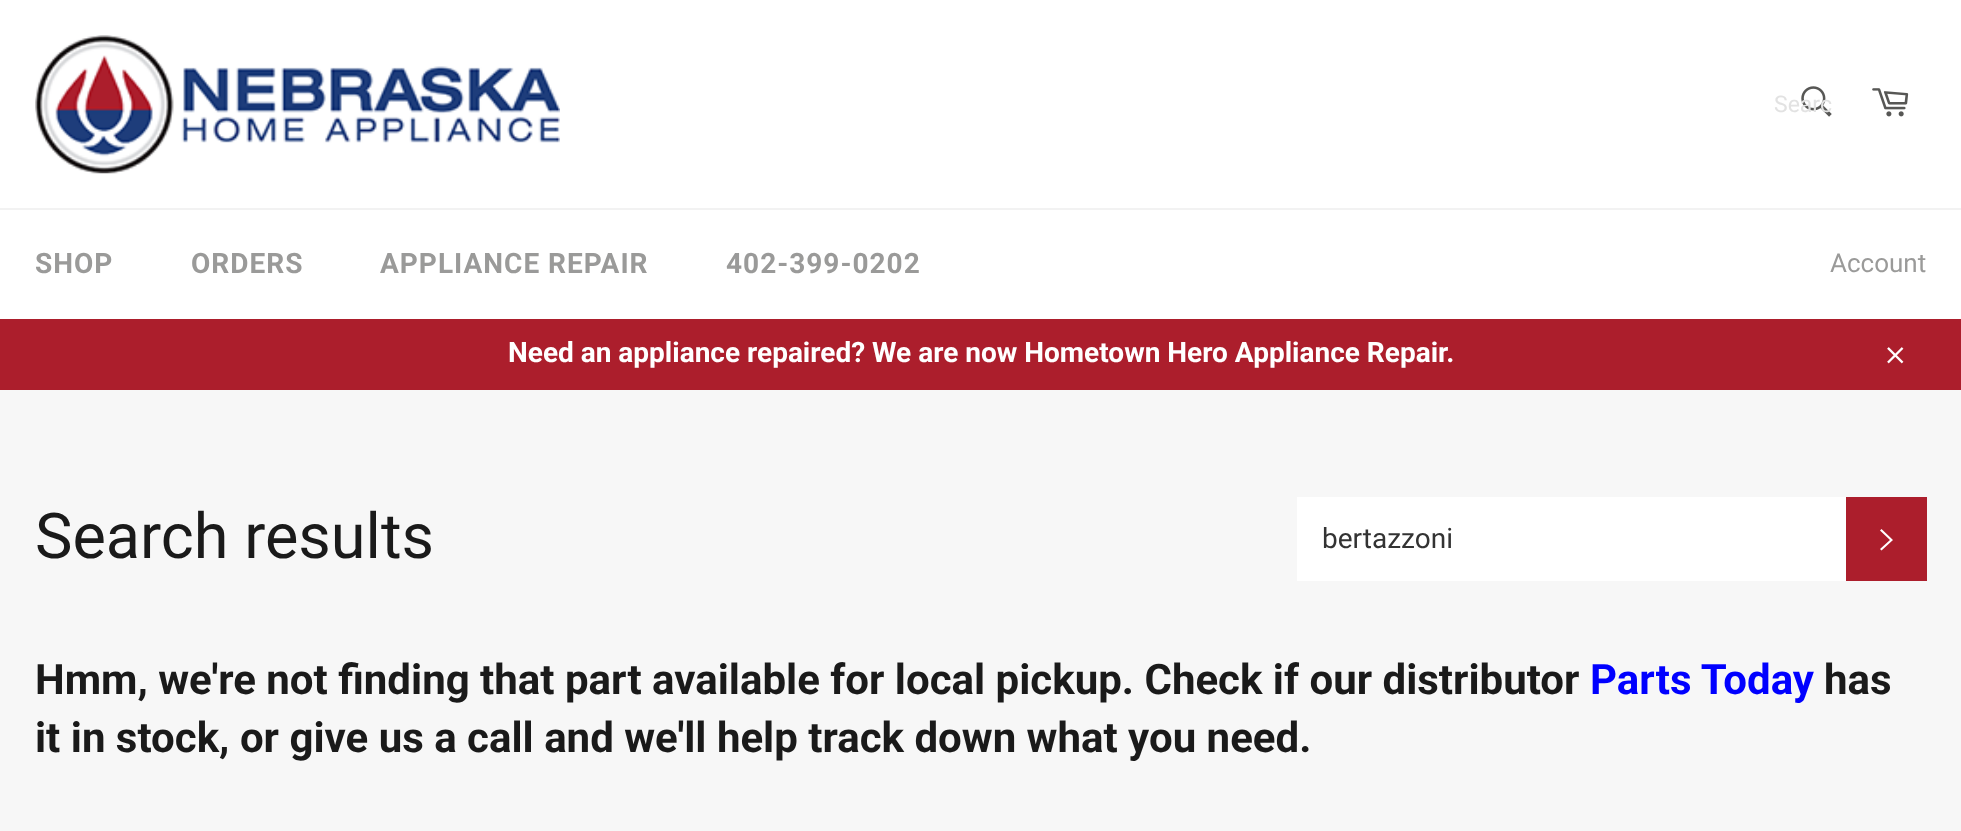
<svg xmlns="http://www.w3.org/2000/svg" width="1961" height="831">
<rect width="100%" height="100%" fill="#f7f7f7"/>
<rect width="1961" height="208" fill="#fff"/>
<image x="35" y="35" width="525" height="139" href="media/1.png"/>
<image x="1801" y="86" width="31" height="31" href="media/2.png"/>
<text x="1774" y="112" style="font-family:Roboto;font-size:23px;fill:#e2e2e2">Searc</text>
<image x="1872" y="88" width="37" height="29" href="media/3.png"/>
<rect y="210" width="1961" height="109" fill="#fff"/>
<rect y="208" width="1961" height="2" fill="#f2f2f2"/>
<text x="35" y="273" style="font-family:Roboto;font-size:28px;font-weight:bold;letter-spacing:1px;fill:#9a9a99">SHOP</text>
<text x="191" y="273" style="font-family:Roboto;font-size:28px;font-weight:bold;letter-spacing:1px;fill:#9a9a99">ORDERS</text>
<text x="380" y="273" style="font-family:Roboto;font-size:28px;font-weight:bold;letter-spacing:1px;fill:#9a9a99">APPLIANCE REPAIR</text>
<text x="726" y="273" style="font-family:Roboto;font-size:28px;font-weight:bold;letter-spacing:1px;fill:#9a9a99">402-399-0202</text>
<text x="1830" y="272" style="font-family:Roboto;font-size:26px;fill:#9a9a99">Account</text>
<rect y="319" width="1961" height="71" fill="#ac1e2c"/>
<text x="508" y="362" style="font-family:Roboto;font-size:28px;font-weight:bold;fill:#fff">Need an appliance repaired? We are now Hometown Hero Appliance Repair.</text>
<image x="1887" y="347" width="17" height="17" href="media/4.png"/>
<text x="35" y="558" style="font-family:Roboto;font-size:63px;fill:#1a1a1a">Search results</text>
<rect x="1297" y="497" width="549" height="84" fill="#fff"/>
<text x="1322" y="548" style="font-family:Roboto;font-size:28px;fill:#333">bertazzoni</text>
<rect x="1846" y="497" width="81" height="84" fill="#ac1e2c"/>
<path d="M1880 530.5l1.5-1.5l11.5 11l-11.5 10.5l-1.5-1.5l10-9z" fill="#fff"/>
<text x="35" y="694" style="font-family:Roboto;font-size:42px;font-weight:bold;fill:#1a1a1a">Hmm, we're not finding that part available for local pickup. Check if our distributor</text>
<text x="1590" y="694" style="font-family:Roboto;font-size:42px;font-weight:bold;fill:#00f">Parts Today</text>
<text x="1824" y="694" style="font-family:Roboto;font-size:42px;font-weight:bold;fill:#1a1a1a">has</text>
<text x="35" y="752" style="font-family:Roboto;font-size:42px;font-weight:bold;fill:#1a1a1a">it in stock, or give us a call and we'll help track down what you need.</text>
</svg>
